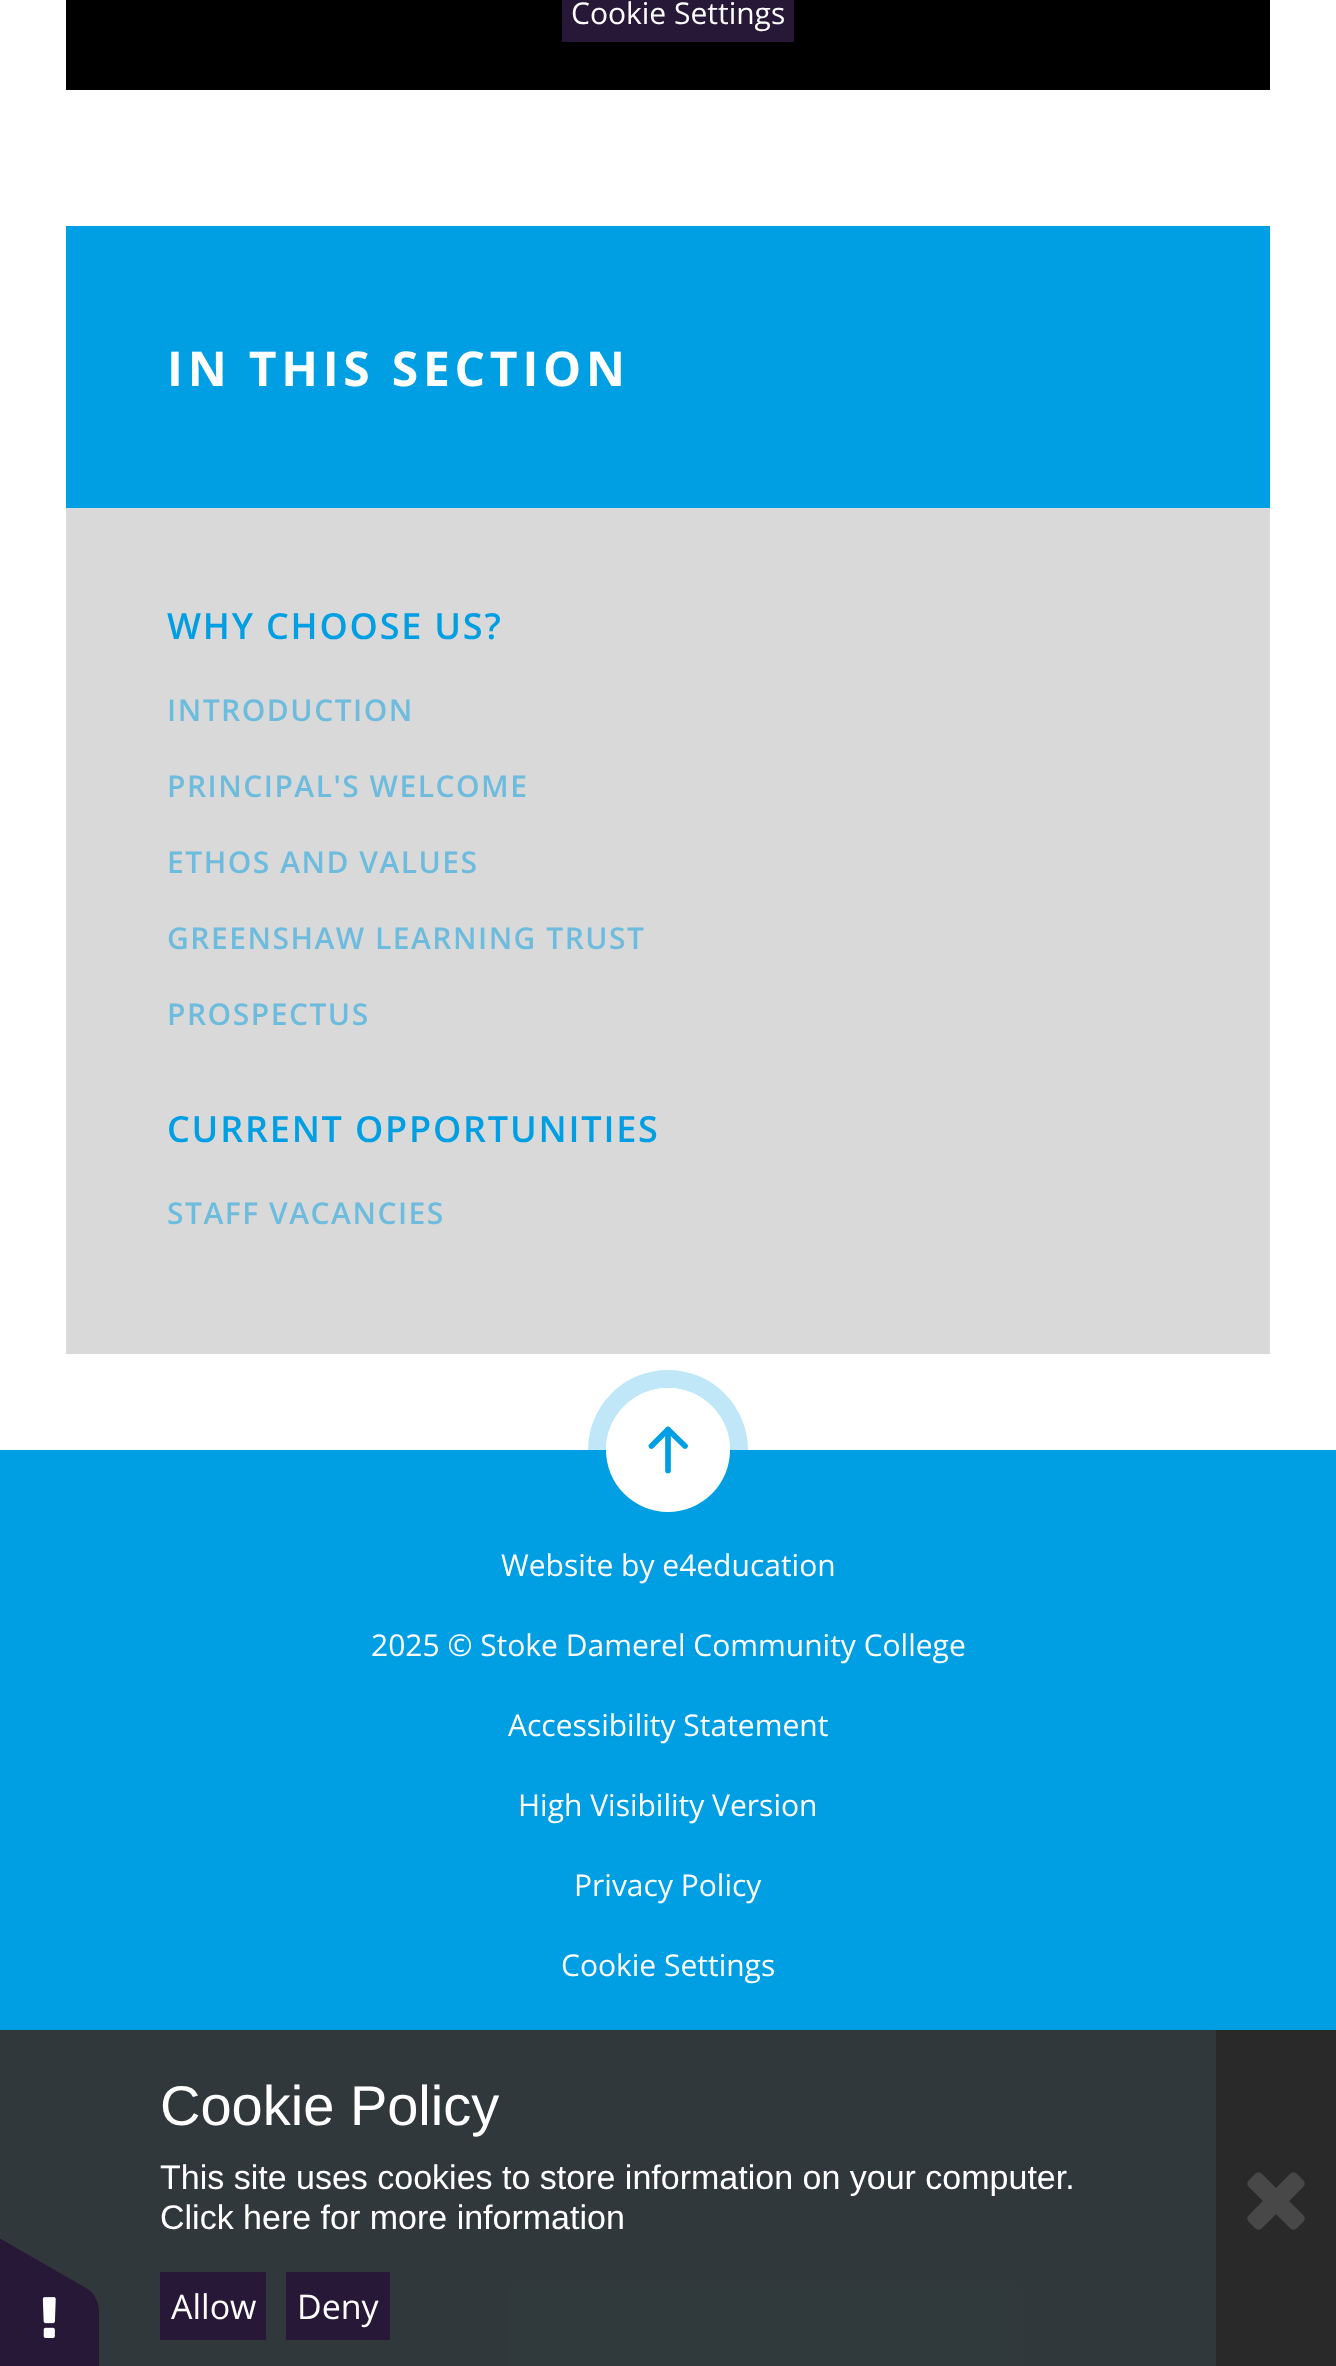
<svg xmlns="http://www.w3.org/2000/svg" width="1336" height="2366">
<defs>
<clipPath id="clip1"><path d="M688 1426v48h-40v-48z"/></clipPath>
</defs>
<rect width="100%" height="100%" fill="#fff"/>
<rect x="66" width="1204" height="90" fill="#000"/>
<rect x="562" width="232" height="42" fill="#281838"/>
<text x="571" y="24" style="font-family:Open Sans;font-size:30px;fill:#fff">Cookie Settings</text>
<rect x="66" y="508" width="1204" height="846" fill="#d9d9d9"/>
<rect x="66" y="226" width="1204" height="282" fill="#009fe3"/>
<text x="167" y="386" style="font-family:Open Sans;font-size:48px;font-weight:bold;letter-spacing:4.75px;fill:#fff">IN THIS SECTION</text>
<text x="167" y="639" style="font-family:Open Sans;font-size:36px;font-weight:600;letter-spacing:1.8px;fill:#009fe3">WHY CHOOSE US?</text>
<text x="167" y="721" style="font-family:Open Sans;font-size:30px;font-weight:600;letter-spacing:1.5px;fill:#6dbcde">INTRODUCTION</text>
<text x="167" y="797" style="font-family:Open Sans;font-size:30px;font-weight:600;letter-spacing:1.5px;fill:#6dbcde">PRINCIPAL'S WELCOME</text>
<text x="167" y="873" style="font-family:Open Sans;font-size:30px;font-weight:600;letter-spacing:1.5px;fill:#6dbcde">ETHOS AND VALUES</text>
<text x="167" y="949" style="font-family:Open Sans;font-size:30px;font-weight:600;letter-spacing:1.5px;fill:#6dbcde">GREENSHAW LEARNING TRUST</text>
<text x="167" y="1025" style="font-family:Open Sans;font-size:30px;font-weight:600;letter-spacing:1.5px;fill:#6dbcde">PROSPECTUS</text>
<text x="167" y="1142" style="font-family:Open Sans;font-size:36px;font-weight:600;letter-spacing:1.8px;fill:#009fe3">CURRENT OPPORTUNITIES</text>
<text x="167" y="1224" style="font-family:Open Sans;font-size:30px;font-weight:600;letter-spacing:1.5px;fill:#6dbcde">STAFF VACANCIES</text>
<rect y="1450" width="1336" height="916" fill="#009fe3"/>
<circle cx="668" cy="1450" r="71" fill="none" stroke="#009fe340" stroke-width="18"/>
<circle cx="668" cy="1450" r="62" fill="#fff"/>
<path d="M668 1470.5v-41" fill="none" stroke="#009fe3" stroke-width="5.7" stroke-linecap="round"/>
<g clip-path="url(#clip1)">
<path d="M651.5 1446l16.5-16.5l17 16.5" fill="none" stroke="#009fe3" stroke-width="5.7" stroke-linecap="round" stroke-linejoin="round"/>
</g>
<text x="501" y="1576" style="font-family:Open Sans;font-size:30px;fill:#fff">Website by e4education</text>
<text x="371" y="1656" style="font-family:Open Sans;font-size:30px;fill:#fff">2025 © Stoke Damerel Community College</text>
<text x="508" y="1736" style="font-family:Open Sans;font-size:30px;fill:#fff">Accessibility Statement</text>
<text x="518" y="1816" style="font-family:Open Sans;font-size:30px;fill:#fff">High Visibility Version</text>
<text x="574" y="1896" style="font-family:Open Sans;font-size:30px;fill:#fff">Privacy Policy</text>
<text x="561" y="1976" style="font-family:Open Sans;font-size:30px;fill:#fff">Cookie Settings</text>
<rect y="2030" width="1216" height="336" fill="#333333f2"/>
<path d="M99 2312v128c0 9-3 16-8 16h-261c-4 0-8-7-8-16v-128c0-9 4-16 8-16h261c5 0 8 7 8 16z" fill="#281838"/>
<path d="M-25 2224l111 64c7 4 12 11 9 15l-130 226c-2 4-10 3-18-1l-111-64c-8-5-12-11-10-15l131-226c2-4 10-4 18 1z" fill="#281838"/>
<image x="42" y="2297" width="14" height="41" href="media/1.png"/>
<text x="160" y="2125" style="font-family:Liberation Sans;font-size:56px;fill:#fff">Cookie Policy</text>
<text x="160" y="2189" style="font-family:Liberation Sans;font-size:34px;fill:#fff">This site uses cookies to store information on your computer.</text>
<text x="160" y="2229" style="font-family:Liberation Sans;font-size:34px;fill:#fff">Click here for more information</text>
<rect x="160" y="2272" width="106" height="68" fill="#281838"/>
<text x="171" y="2319" style="font-family:Open Sans;font-size:34px;fill:#fff">Allow</text>
<rect x="286" y="2272" width="104" height="68" fill="#281838"/>
<text x="297" y="2319" style="font-family:Open Sans;font-size:34px;fill:#fff">Deny</text>
<rect x="1216" y="2030" width="120" height="336" fill="#292929"/>
<image x="1247" y="2172" width="58" height="58" href="media/2.png"/>
</svg>
